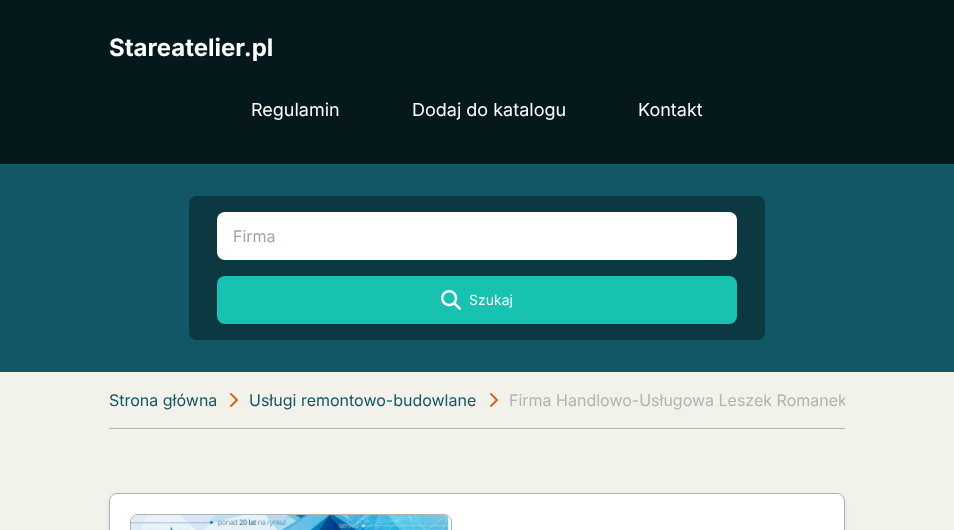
<svg xmlns="http://www.w3.org/2000/svg" width="954" height="530">
<defs>
<clipPath id="clip1"><rect x="109" y="372" width="736" height="56"/></clipPath>
</defs>
<rect width="100%" height="100%" fill="#f3f2ea"/>
<rect width="954" height="164" fill="#05191d"/>
<text x="109" y="56" style="font-family:Inter;font-size:24px;font-weight:bold;fill:#fff">Stareatelier.pl</text>
<text x="251" y="116" style="font-family:Inter;font-size:18px;fill:#fff">Regulamin</text>
<text x="412" y="116" style="font-family:Inter;font-size:18px;fill:#fff">Dodaj do katalogu</text>
<text x="638" y="116" style="font-family:Inter;font-size:18px;fill:#fff">Kontakt</text>
<rect y="164" width="954" height="208" fill="#115765"/>
<rect x="189" y="196" width="576" height="144" rx="8" fill="#0b3841"/>
<rect x="217" y="212" width="520" height="48" rx="8" fill="#fff"/>
<text x="233" y="242" style="font-family:Inter;font-size:16px;fill:#9ca3af">Firma</text>
<rect x="217" y="276" width="520" height="48" rx="8" fill="#17c2b1"/>
<image x="441" y="290" width="20" height="20" href="media/1.png"/>
<text x="469" y="305" style="font-family:Inter;font-size:14px;fill:#fff">Szukaj</text>
<rect x="109" y="428" width="736" height="1" fill="#b2b2b2"/>
<text x="109" y="406" style="font-family:Inter;font-size:16px;fill:#115765">Strona główna</text>
<image x="230" y="393" width="8" height="14" href="media/2.png"/>
<text x="249" y="406" style="font-family:Inter;font-size:16px;fill:#115765">Usługi remontowo-budowlane</text>
<image x="490" y="393" width="8" height="14" href="media/2.png"/>
<g clip-path="url(#clip1)">
<text x="509" y="406" style="font-family:Inter;font-size:16px;fill:#b2b2b2">Firma Handlowo-Usługowa Leszek Romanek</text>
</g>
<rect x="110" y="498" width="734" height="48" rx="7" fill="#0000001a" filter="blur(3px)"/>
<rect x="109.5" y="493.5" width="735" height="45" rx="7.5" fill="#fff" stroke="#b2b2b2"/>
<rect x="130.5" y="514.5" width="321" height="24" rx="7.5" fill="none" stroke="#b2b2b2"/>
<image x="131" y="515" width="320" height="15" href="media/3.png"/>
</svg>
